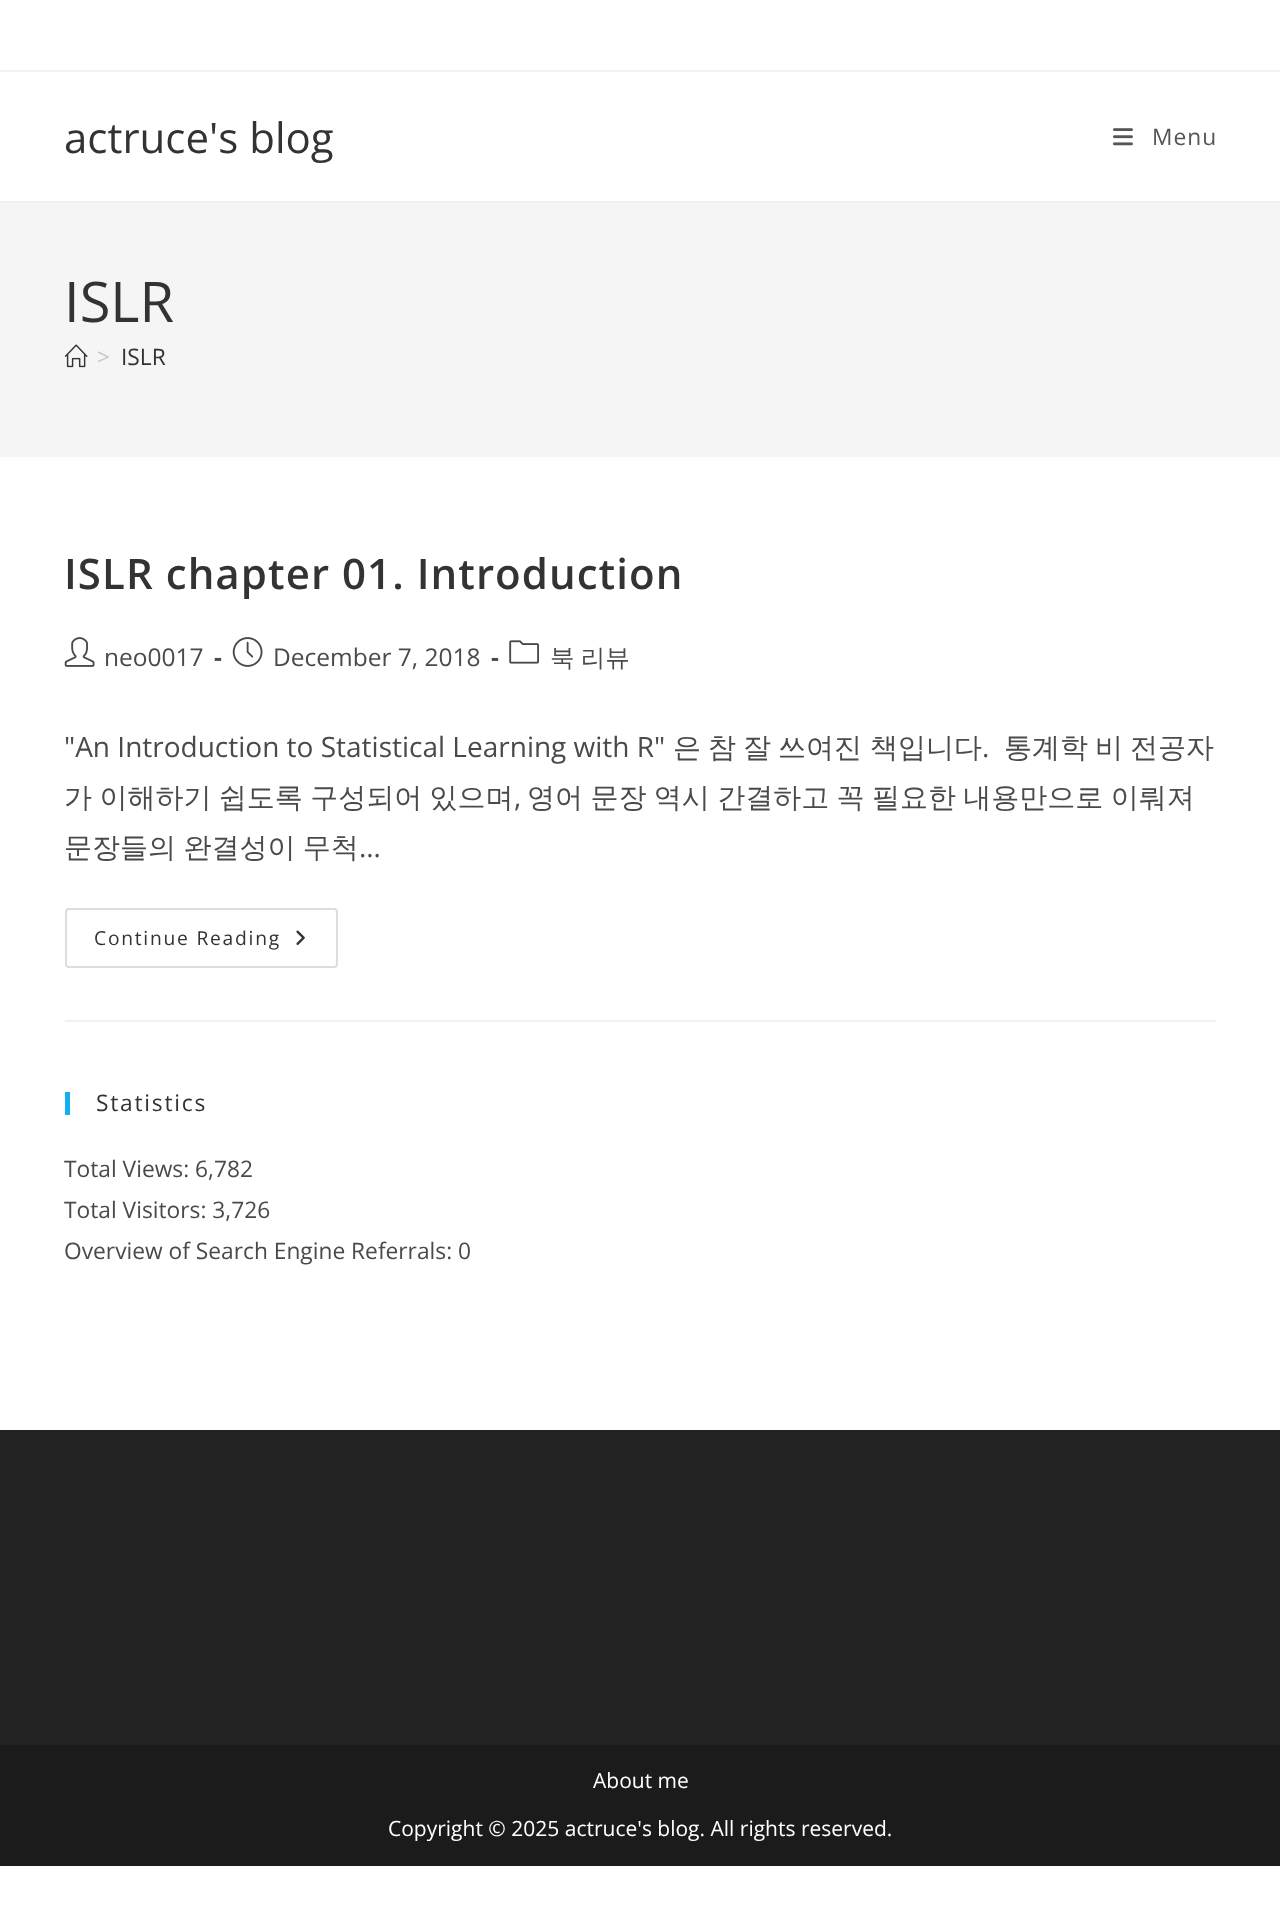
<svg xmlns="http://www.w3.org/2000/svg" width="1280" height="1923">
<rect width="100%" height="100%" fill="#fff"/>
<rect y="70" width="1280" height="2" fill="#f1f1f1"/>
<rect y="201" width="1280" height="2" fill="#f1f1f1"/>
<text x="64" y="153" style="font-family:Open Sans;font-size:42px;fill:#333">actruce's blog</text>
<image x="1113" y="128" width="20" height="18" href="media/1.png"/>
<text x="1152" y="145" style="font-family:Open Sans;font-size:22.75px;letter-spacing:1.05px;fill:#555">Menu</text>
<rect y="203" width="1280" height="254" fill="#f5f5f5"/>
<text x="64" y="322" style="font-family:Open Sans;font-size:56px;fill:#333">ISLR</text>
<image x="65" y="344" width="23" height="24" href="media/2.png"/>
<text x="97" y="365" style="font-family:Open Sans;font-size:22.75px;fill:#c6c6c6">&gt;</text>
<text x="121" y="365" style="font-family:Open Sans;font-size:22.75px;fill:#333">ISLR</text>
<rect x="65" y="1020" width="1151" height="2" fill="#f1f1f1"/>
<text x="64" y="589" style="font-family:Open Sans;font-size:42px;font-weight:600;letter-spacing:1.05px;fill:#333">ISLR chapter 01. Introduction</text>
<image x="64" y="637" width="31" height="30" href="media/3.png"/>
<text x="104" y="666" style="font-family:Open Sans;font-size:24.5px;fill:#4a4a4a">neo0017</text>
<text x="214" y="666" style="font-family:Open Sans;font-size:24.5px;font-weight:bold;fill:#4a4a4a">-</text>
<image x="232" y="637" width="31" height="30" href="media/4.png"/>
<text x="273" y="666" style="font-family:Open Sans;font-size:24.5px;fill:#4a4a4a">December 7, 2018</text>
<text x="491" y="666" style="font-family:Open Sans;font-size:24.5px;font-weight:bold;fill:#4a4a4a">-</text>
<image x="509" y="640" width="30" height="24" href="media/5.png"/>
<text x="550" y="666" word-spacing="-1" style="font-family:WenQuanYi Zen Hei;font-size:24.5px;font-weight:500;fill:#4a4a4a">북 리뷰</text>
<text x="64" y="757" style="font-family:Open Sans;font-size:28px;fill:#4a4a4a">"An Introduction to Statistical Learning with R"</text>
<text x="673" y="757" style="font-family:WenQuanYi Zen Hei;font-size:28px;font-weight:500;fill:#4a4a4a">은</text>
<text x="708" y="757" style="font-family:WenQuanYi Zen Hei;font-size:28px;font-weight:500;fill:#4a4a4a">참</text>
<text x="743" y="757" style="font-family:WenQuanYi Zen Hei;font-size:28px;font-weight:500;fill:#4a4a4a">잘</text>
<text x="778" y="757" style="font-family:WenQuanYi Zen Hei;font-size:28px;font-weight:500;fill:#4a4a4a">쓰여진</text>
<text x="870" y="757" style="font-family:WenQuanYi Zen Hei;font-size:28px;font-weight:500;fill:#4a4a4a">책입니다</text>
<text x="982" y="757" style="font-family:Open Sans;font-size:28px;fill:#4a4a4a">.</text>
<text x="1004" y="757" style="font-family:WenQuanYi Zen Hei;font-size:28px;font-weight:500;fill:#4a4a4a">통계학</text>
<text x="1095" y="757" style="font-family:WenQuanYi Zen Hei;font-size:28px;font-weight:500;fill:#4a4a4a">비</text>
<text x="1130" y="757" style="font-family:WenQuanYi Zen Hei;font-size:28px;font-weight:500;fill:#4a4a4a">전공자</text>
<text x="64" y="807" word-spacing="-1" style="font-family:WenQuanYi Zen Hei;font-size:28px;font-weight:500;fill:#4a4a4a">가 이해하기 쉽도록 구성되어 있으며</text>
<text x="514" y="807" style="font-family:Open Sans;font-size:28px;fill:#4a4a4a">,</text>
<text x="527" y="807" word-spacing="-1" style="font-family:WenQuanYi Zen Hei;font-size:28px;font-weight:500;fill:#4a4a4a">영어 문장 역시 간결하고 꼭 필요한 내용만으로 이뤄져</text>
<text x="64" y="857" word-spacing="-1" style="font-family:WenQuanYi Zen Hei;font-size:28px;font-weight:500;fill:#4a4a4a">문장들의 완결성이 무척</text>
<text x="359" y="857" style="font-family:Open Sans;font-size:28px;fill:#4a4a4a">…</text>
<rect x="66" y="909" width="271" height="58" rx="3" fill="none" stroke="#ddd" stroke-width="2"/>
<text x="94" y="945" style="font-family:Open Sans;font-size:19.25px;letter-spacing:1.75px;fill:#333">Continue Reading</text>
<image x="296" y="930" width="9" height="15" href="media/6.png"/>
<rect x="65" y="1092" width="5" height="23" fill="#13aff0"/>
<text x="96" y="1111" style="font-family:Open Sans;font-size:22.75px;letter-spacing:1.75px;fill:#333">Statistics</text>
<text x="64" y="1177" style="font-family:Open Sans;font-size:22.75px;fill:#4a4a4a">Total Views: 6,782</text>
<text x="64" y="1218" style="font-family:Open Sans;font-size:22.75px;fill:#4a4a4a">Total Visitors: 3,726</text>
<text x="64" y="1259" style="font-family:Open Sans;font-size:22.75px;fill:#4a4a4a">Overview of Search Engine Referrals: 0</text>
<rect y="1430" width="1280" height="315" fill="#222"/>
<rect y="1745" width="1280" height="121" fill="#1b1b1b"/>
<text x="593" y="1788" style="font-family:Open Sans;font-size:21px;fill:#fff">About me</text>
<text x="388" y="1836" style="font-family:Open Sans;font-size:21px;fill:#fff">Copyright © 2025 actruce's blog. All rights reserved.</text>
</svg>
